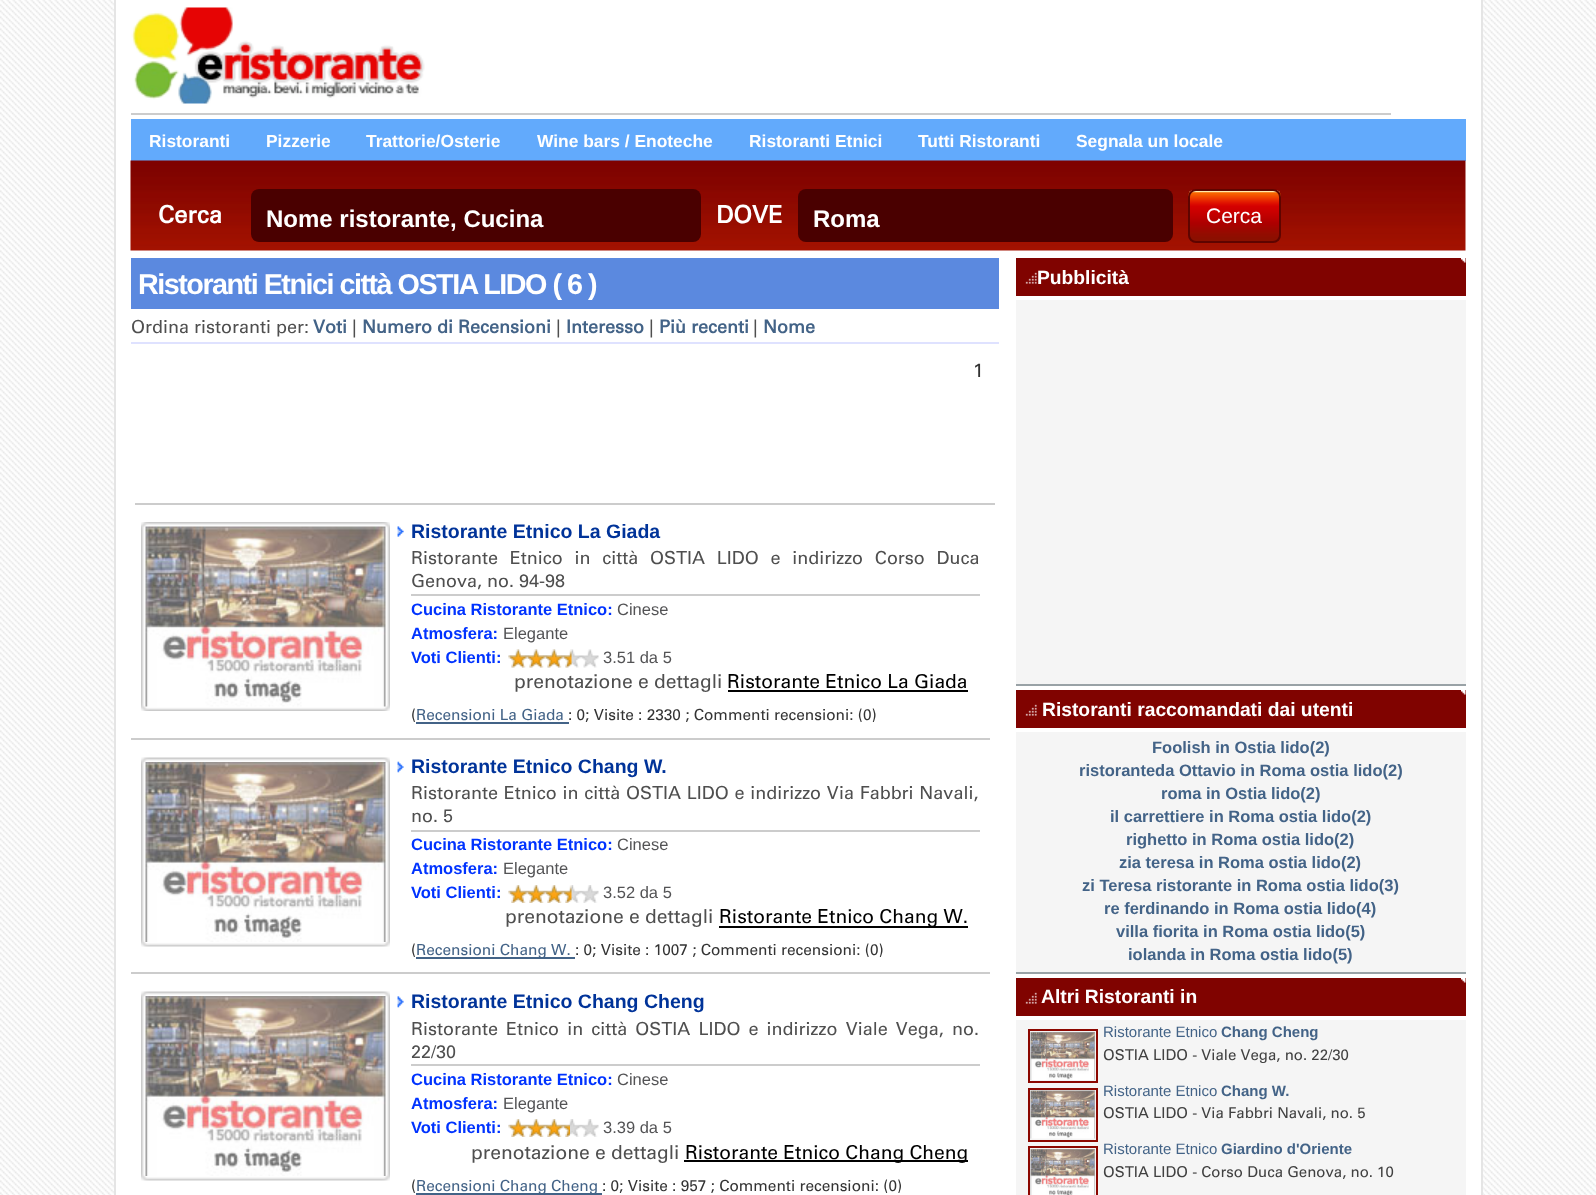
<svg xmlns="http://www.w3.org/2000/svg" width="1596" height="1195">
<rect width="100%" height="100%" fill="#fff"/>
<image x="0" y="0" width="1596" height="1195" href="media/1.png"/>
<rect x="116" width="1365" height="1195" fill="#fff"/>
<rect x="1481" width="2" height="1195" fill="#e5e5e5"/>
<rect x="114" width="2" height="1195" fill="#e5e5e5"/>
<rect x="131" y="113" width="1260" height="2" fill="#ccc"/>
<image x="131" y="7" width="294" height="97" href="media/2.png"/>
<rect x="131" y="119" width="1335" height="42" fill="#62aafc"/>
<text x="149" y="147" style="font-family:Liberation Sans;font-size:17.4px;font-weight:bold;fill:#fff">Ristoranti</text>
<text x="266" y="147" style="font-family:Liberation Sans;font-size:17.4px;font-weight:bold;fill:#fff">Pizzerie</text>
<text x="366" y="147" style="font-family:Liberation Sans;font-size:17.4px;font-weight:bold;fill:#fff">Trattorie/Osterie</text>
<text x="537" y="147" style="font-family:Liberation Sans;font-size:17.4px;font-weight:bold;fill:#fff">Wine bars / Enoteche</text>
<text x="749" y="147" style="font-family:Liberation Sans;font-size:17.4px;font-weight:bold;fill:#fff">Ristoranti Etnici</text>
<text x="918" y="147" style="font-family:Liberation Sans;font-size:17.4px;font-weight:bold;fill:#fff">Tutti Ristoranti</text>
<text x="1076" y="147" style="font-family:Liberation Sans;font-size:17.4px;font-weight:bold;fill:#fff">Segnala un locale</text>
<image x="130" y="160" width="1336" height="91" href="media/3.png"/>
<text x="158" y="223" style="font-family:Univers;font-size:24px;font-weight:bold;fill:#fff">Cerca</text>
<rect x="251" y="189" width="450" height="53" rx="8" fill="#4a0000"/>
<text x="266" y="227" style="font-family:Liberation Sans;font-size:24px;font-weight:bold;fill:#fff">Nome ristorante, Cucina</text>
<text x="716" y="223" style="font-family:Univers;font-size:24px;font-weight:bold;fill:#fff">DOVE</text>
<rect x="798" y="189" width="375" height="53" rx="8" fill="#4a0000"/>
<text x="813" y="227" style="font-family:Liberation Sans;font-size:24px;font-weight:bold;fill:#fff">Roma</text>
<image x="1188" y="189" width="93" height="52" href="media/4.png"/>
<rect x="1189" y="190" width="91" height="52" rx="7" fill="none" stroke="#5e0400" stroke-width="2"/>
<text x="1206" y="223" style="font-family:Liberation Sans;font-size:21px;fill:#fff">Cerca</text>
<rect x="131" y="258" width="868" height="51" fill="#5b89df"/>
<text x="138" y="294" style="font-family:Liberation Sans;font-size:28.75px;font-weight:bold;letter-spacing:-1.5px;fill:#fff">Ristoranti Etnici città OSTIA LIDO ( 6 )</text>
<rect x="131" y="342" width="868" height="2" fill="#dfe2ff"/>
<text x="131" y="333" style="font-family:Univers;font-size:18px;fill:#4f4f4f">Ordina ristoranti per:</text>
<text x="313" y="333" style="font-family:Univers;font-size:18px;font-weight:bold;fill:#436387">Voti</text>
<text x="352" y="333" style="font-family:Univers;font-size:18px;fill:#4f4f4f">|</text>
<text x="362" y="333" style="font-family:Univers;font-size:18px;font-weight:bold;fill:#436387">Numero di Recensioni</text>
<text x="556" y="333" style="font-family:Univers;font-size:18px;fill:#4f4f4f">|</text>
<text x="566" y="333" style="font-family:Univers;font-size:18px;font-weight:bold;fill:#436387">Interesso</text>
<text x="649" y="333" style="font-family:Univers;font-size:18px;fill:#4f4f4f">|</text>
<text x="659" y="333" style="font-family:Univers;font-size:18px;font-weight:bold;fill:#436387">Più recenti</text>
<text x="753" y="333" style="font-family:Univers;font-size:18px;fill:#4f4f4f">|</text>
<text x="763" y="333" style="font-family:Univers;font-size:18px;font-weight:bold;fill:#436387">Nome</text>
<text x="973" y="377" style="font-family:Univers;font-size:19.25px;fill:#333">1</text>
<rect x="135" y="503" width="860" height="2" fill="#ccc"/>
<rect x="131" y="738" width="859" height="2" fill="#ccc"/>
<image x="141" y="522" width="249" height="189" href="media/5.png"/>
<image x="145" y="526" width="241" height="181" href="media/6.png"/>
<image x="397" y="526" width="7" height="11" href="media/7.png"/>
<text x="411" y="538" style="font-family:Liberation Sans;font-size:19.5px;font-weight:bold;fill:#039">Ristorante Etnico La Giada</text>
<rect x="411" y="594" width="569" height="2" fill="#ccc"/>
<text x="411" y="564" word-spacing="6.75" style="font-family:Univers;font-size:18px;fill:#4f4f4f">Ristorante Etnico in città OSTIA LIDO e indirizzo Corso Duca</text>
<text x="411" y="587" style="font-family:Univers;font-size:18px;fill:#4f4f4f">Genova, no. 94-98</text>
<text x="411" y="615" style="font-family:Liberation Sans;font-size:16.5px;font-weight:bold;fill:#03f">Cucina Ristorante Etnico:</text>
<text x="617" y="615" style="font-family:Liberation Sans;font-size:16.5px;fill:#535355">Cinese</text>
<text x="411" y="639" style="font-family:Liberation Sans;font-size:16.5px;font-weight:bold;fill:#03f">Atmosfera:</text>
<text x="503" y="639" style="font-family:Liberation Sans;font-size:16.5px;fill:#535355">Elegante</text>
<text x="411" y="663" style="font-family:Liberation Sans;font-size:16.5px;font-weight:bold;fill:#03f">Voti Clienti:</text>
<image x="508" y="649" width="91" height="19" href="media/8.png"/>
<image x="508" y="649" width="64" height="19" href="media/9.png"/>
<text x="603" y="663" style="font-family:Liberation Sans;font-size:16.5px;fill:#535355">3.51 da 5</text>
<text x="514" y="688" style="font-family:Univers;font-size:19.25px;fill:#4f4f4f">prenotazione e dettagli</text>
<text x="727" y="688" style="font-family:Univers;font-size:19.25px;fill:#000">Ristorante Etnico La Giada</text>
<rect x="728" y="690" width="240" height="2" fill="#000"/>
<text x="411" y="720" style="font-family:Univers;font-size:15.4px;fill:#333">(</text>
<text x="416" y="720" style="font-family:Univers;font-size:15.4px;fill:#436387">Recensioni La Giada</text>
<rect x="416" y="722" width="153" height="2" fill="#436387"/>
<text x="568" y="720" style="font-family:Univers;font-size:15.4px;fill:#333">: 0; Visite : 2330 ; Commenti recensioni: (0)</text>
<rect x="131" y="972" width="859" height="2" fill="#ccc"/>
<image x="141" y="757" width="249" height="190" href="media/10.png"/>
<image x="145" y="762" width="241" height="180" href="media/11.png"/>
<image x="397" y="761" width="7" height="12" href="media/12.png"/>
<text x="411" y="773" style="font-family:Liberation Sans;font-size:19.5px;font-weight:bold;fill:#039">Ristorante Etnico Chang W.</text>
<rect x="411" y="830" width="569" height="2" fill="#ccc"/>
<text x="411" y="799" word-spacing="0.75" style="font-family:Univers;font-size:18px;fill:#4f4f4f">Ristorante Etnico in città OSTIA LIDO e indirizzo Via Fabbri Navali,</text>
<text x="411" y="822" style="font-family:Univers;font-size:18px;fill:#4f4f4f">no. 5</text>
<text x="411" y="850" style="font-family:Liberation Sans;font-size:16.5px;font-weight:bold;fill:#03f">Cucina Ristorante Etnico:</text>
<text x="617" y="850" style="font-family:Liberation Sans;font-size:16.5px;fill:#535355">Cinese</text>
<text x="411" y="874" style="font-family:Liberation Sans;font-size:16.5px;font-weight:bold;fill:#03f">Atmosfera:</text>
<text x="503" y="874" style="font-family:Liberation Sans;font-size:16.5px;fill:#535355">Elegante</text>
<text x="411" y="898" style="font-family:Liberation Sans;font-size:16.5px;font-weight:bold;fill:#03f">Voti Clienti:</text>
<image x="508" y="885" width="91" height="18" href="media/13.png"/>
<image x="508" y="885" width="64" height="18" href="media/14.png"/>
<text x="603" y="898" style="font-family:Liberation Sans;font-size:16.5px;fill:#535355">3.52 da 5</text>
<text x="505" y="923" style="font-family:Univers;font-size:19.25px;fill:#4f4f4f">prenotazione e dettagli</text>
<rect x="719" y="926" width="249" height="2" fill="#000"/>
<text x="719" y="923" style="font-family:Univers;font-size:19.25px;fill:#000">Ristorante Etnico Chang W.</text>
<text x="411" y="955" style="font-family:Univers;font-size:15.4px;fill:#333">(</text>
<rect x="416" y="957" width="159" height="2" fill="#436387"/>
<text x="416" y="955" style="font-family:Univers;font-size:15.4px;fill:#436387">Recensioni Chang W.</text>
<text x="575" y="955" style="font-family:Univers;font-size:15.4px;fill:#333">: 0; Visite : 1007 ; Commenti recensioni: (0)</text>
<image x="141" y="991" width="249" height="190" href="media/10.png"/>
<image x="145" y="996" width="241" height="180" href="media/11.png"/>
<image x="397" y="996" width="7" height="12" href="media/15.png"/>
<text x="411" y="1008" style="font-family:Liberation Sans;font-size:19.5px;font-weight:bold;fill:#039">Ristorante Etnico Chang Cheng</text>
<rect x="411" y="1064" width="569" height="2" fill="#ccc"/>
<text x="411" y="1035" word-spacing="3.1" style="font-family:Univers;font-size:18px;fill:#4f4f4f">Ristorante Etnico in città OSTIA LIDO e indirizzo Viale Vega, no.</text>
<text x="411" y="1058" style="font-family:Univers;font-size:18px;fill:#4f4f4f">22/30</text>
<text x="411" y="1085" style="font-family:Liberation Sans;font-size:16.5px;font-weight:bold;fill:#03f">Cucina Ristorante Etnico:</text>
<text x="617" y="1085" style="font-family:Liberation Sans;font-size:16.5px;fill:#535355">Cinese</text>
<text x="411" y="1109" style="font-family:Liberation Sans;font-size:16.5px;font-weight:bold;fill:#03f">Atmosfera:</text>
<text x="503" y="1109" style="font-family:Liberation Sans;font-size:16.5px;fill:#535355">Elegante</text>
<text x="411" y="1133" style="font-family:Liberation Sans;font-size:16.5px;font-weight:bold;fill:#03f">Voti Clienti:</text>
<image x="508" y="1119" width="91" height="18" href="media/13.png"/>
<image x="508" y="1119" width="62" height="18" href="media/16.png"/>
<text x="603" y="1133" style="font-family:Liberation Sans;font-size:16.5px;fill:#535355">3.39 da 5</text>
<text x="471" y="1159" style="font-family:Univers;font-size:19.25px;fill:#4f4f4f">prenotazione e dettagli</text>
<rect x="684" y="1160" width="284" height="2" fill="#000"/>
<text x="685" y="1159" style="font-family:Univers;font-size:19.25px;fill:#000">Ristorante Etnico Chang Cheng</text>
<text x="411" y="1191" style="font-family:Univers;font-size:15.4px;fill:#333">(</text>
<rect x="416" y="1193" width="186" height="2" fill="#436387"/>
<text x="416" y="1191" style="font-family:Univers;font-size:15.4px;fill:#436387">Recensioni Chang Cheng</text>
<text x="602" y="1191" style="font-family:Univers;font-size:15.4px;fill:#333">: 0; Visite : 957 ; Commenti recensioni: (0)</text>
<rect x="1016" y="258" width="450" height="38" fill="#800300"/>
<image x="1461" y="258" width="5" height="5" href="media/17.png"/>
<image x="1025" y="272" width="12" height="12" href="media/18.png"/>
<text x="1037" y="284" style="font-family:Liberation Sans;font-size:19.25px;font-weight:bold;fill:#fff">Pubblicità</text>
<rect x="1016" y="300" width="450" height="384" fill="#f5f5f5"/>
<rect x="1016" y="684" width="450" height="2" fill="#99a2a6"/>
<rect x="1016" y="690" width="450" height="38" fill="#800300"/>
<image x="1461" y="690" width="5" height="5" href="media/17.png"/>
<image x="1025" y="704" width="12" height="12" href="media/18.png"/>
<text x="1042" y="716" style="font-family:Liberation Sans;font-size:19.25px;font-weight:bold;fill:#fff">Ristoranti raccomandati dai utenti</text>
<rect x="1016" y="732" width="450" height="240" fill="#f5f5f5"/>
<rect x="1016" y="972" width="450" height="2" fill="#99a2a6"/>
<text x="1152" y="753" style="font-family:Liberation Sans;font-size:16.5px;font-weight:bold;fill:#436387">Foolish in Ostia lido(2)</text>
<text x="1079" y="776" style="font-family:Liberation Sans;font-size:16.5px;font-weight:bold;fill:#436387">ristoranteda Ottavio in Roma ostia lido(2)</text>
<text x="1161" y="799" style="font-family:Liberation Sans;font-size:16.5px;font-weight:bold;fill:#436387">roma in Ostia lido(2)</text>
<text x="1110" y="822" style="font-family:Liberation Sans;font-size:16.5px;font-weight:bold;fill:#436387">il carrettiere in Roma ostia lido(2)</text>
<text x="1126" y="845" style="font-family:Liberation Sans;font-size:16.5px;font-weight:bold;fill:#436387">righetto in Roma ostia lido(2)</text>
<text x="1119" y="868" style="font-family:Liberation Sans;font-size:16.5px;font-weight:bold;fill:#436387">zia teresa in Roma ostia lido(2)</text>
<text x="1082" y="891" style="font-family:Liberation Sans;font-size:16.5px;font-weight:bold;fill:#436387">zi Teresa ristorante in Roma ostia lido(3)</text>
<text x="1104" y="914" style="font-family:Liberation Sans;font-size:16.5px;font-weight:bold;fill:#436387">re ferdinando in Roma ostia lido(4)</text>
<text x="1116" y="937" style="font-family:Liberation Sans;font-size:16.5px;font-weight:bold;fill:#436387">villa fiorita in Roma ostia lido(5)</text>
<text x="1128" y="960" style="font-family:Liberation Sans;font-size:16.5px;font-weight:bold;fill:#436387">iolanda in Roma ostia lido(5)</text>
<rect x="1016" y="978" width="450" height="38" fill="#800300"/>
<image x="1461" y="978" width="5" height="5" href="media/17.png"/>
<image x="1025" y="992" width="12" height="12" href="media/18.png"/>
<text x="1041" y="1003" style="font-family:Liberation Sans;font-size:19.25px;font-weight:bold;fill:#fff">Altri Ristoranti in</text>
<rect x="1016" y="1020" width="450" height="175" fill="#f5f5f5"/>
<rect x="1029" y="1030" width="68" height="52" fill="none" stroke="#8c0700" stroke-width="2"/>
<image x="1030" y="1032" width="65" height="48" href="media/19.png"/>
<text x="1103" y="1037" style="font-family:Liberation Sans;font-size:15px;fill:#436387">Ristorante Etnico</text>
<text x="1221" y="1037" style="font-family:Liberation Sans;font-size:15px;font-weight:bold;fill:#436387">Chang Cheng</text>
<text x="1103" y="1060" style="font-family:Univers;font-size:15px;fill:#414141">OSTIA LIDO - Viale Vega, no. 22/30</text>
<rect x="1029" y="1089" width="68" height="52" fill="none" stroke="#8c0700" stroke-width="2"/>
<image x="1030" y="1090" width="65" height="49" href="media/20.png"/>
<text x="1103" y="1096" style="font-family:Liberation Sans;font-size:15px;fill:#436387">Ristorante Etnico</text>
<text x="1221" y="1096" style="font-family:Liberation Sans;font-size:15px;font-weight:bold;fill:#436387">Chang W.</text>
<text x="1103" y="1118" style="font-family:Univers;font-size:15px;fill:#414141">OSTIA LIDO - Via Fabbri Navali, no. 5</text>
<rect x="1029" y="1147" width="68" height="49" fill="none" stroke="#8c0700" stroke-width="2"/>
<image x="1030" y="1149" width="65" height="46" href="media/21.png"/>
<text x="1103" y="1154" style="font-family:Liberation Sans;font-size:15px;fill:#436387">Ristorante Etnico</text>
<text x="1221" y="1154" style="font-family:Liberation Sans;font-size:15px;font-weight:bold;fill:#436387">Giardino d'Oriente</text>
<text x="1103" y="1177" style="font-family:Univers;font-size:15px;fill:#414141">OSTIA LIDO - Corso Duca Genova, no. 10</text>
</svg>
